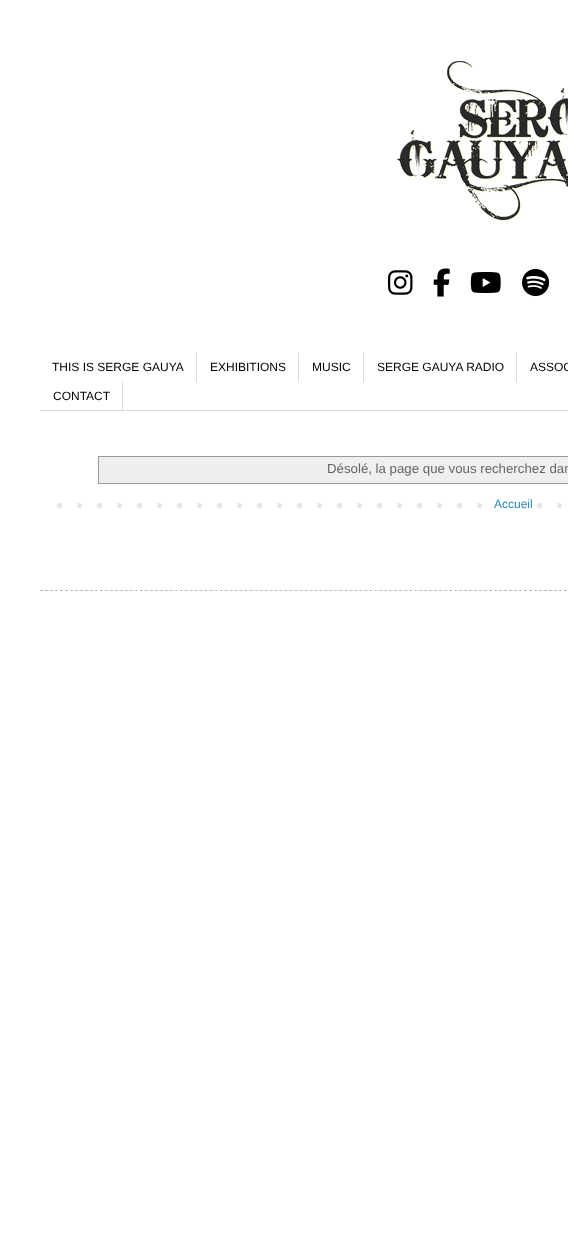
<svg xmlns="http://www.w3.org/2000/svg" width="568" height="1255">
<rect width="100%" height="100%" fill="#fff"/>
<image x="397" y="61" width="171" height="162" href="media/1.png"/>
<image x="388" y="270" width="25" height="25" href="media/2.png"/>
<image x="433" y="268" width="17" height="29" href="media/3.png"/>
<image x="470" y="272" width="31" height="21" href="media/4.png"/>
<image x="522" y="268" width="28" height="29" href="media/5.png"/>
<rect x="40" y="410" width="528" height="1" fill="#ddd"/>
<rect x="196" y="353" width="1" height="29" fill="#ddd"/>
<text x="52" y="371" style="font-family:Liberation Sans;font-size:12px;fill:#000">THIS IS SERGE GAUYA</text>
<rect x="298" y="353" width="1" height="29" fill="#ddd"/>
<text x="210" y="371" style="font-family:Liberation Sans;font-size:12px;fill:#000">EXHIBITIONS</text>
<rect x="363" y="353" width="1" height="29" fill="#ddd"/>
<text x="312" y="371" style="font-family:Liberation Sans;font-size:12px;fill:#000">MUSIC</text>
<rect x="516" y="353" width="1" height="29" fill="#ddd"/>
<text x="377" y="371" style="font-family:Liberation Sans;font-size:12px;fill:#000">SERGE GAUYA RADIO</text>
<text x="530" y="371" style="font-family:Liberation Sans;font-size:12px;fill:#000">ASSOC</text>
<rect x="122" y="382" width="1" height="28" fill="#ddd"/>
<text x="53" y="400" style="font-family:Liberation Sans;font-size:12px;fill:#000">CONTACT</text>
<rect x="98.5" y="456.5" width="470" height="27" fill="none" stroke="#999"/>
<rect x="99" y="457" width="469" height="26" fill="#efefef"/>
<text x="327" y="473" style="font-family:Liberation Sans;font-size:13.25px;fill:#666">Désolé, la page que vous recherchez dan</text>
<image x="57" y="503" width="505" height="5" href="media/6.png"/>
<rect x="497" y="503" width="26" height="5" fill="#fff"/>
<text x="494" y="508" style="font-family:Liberation Sans;font-size:12px;fill:#28b">Accueil</text>
<path d="M40 590.5h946" fill="none" stroke="#bbb" stroke-dasharray="3 1.99"/>
</svg>
